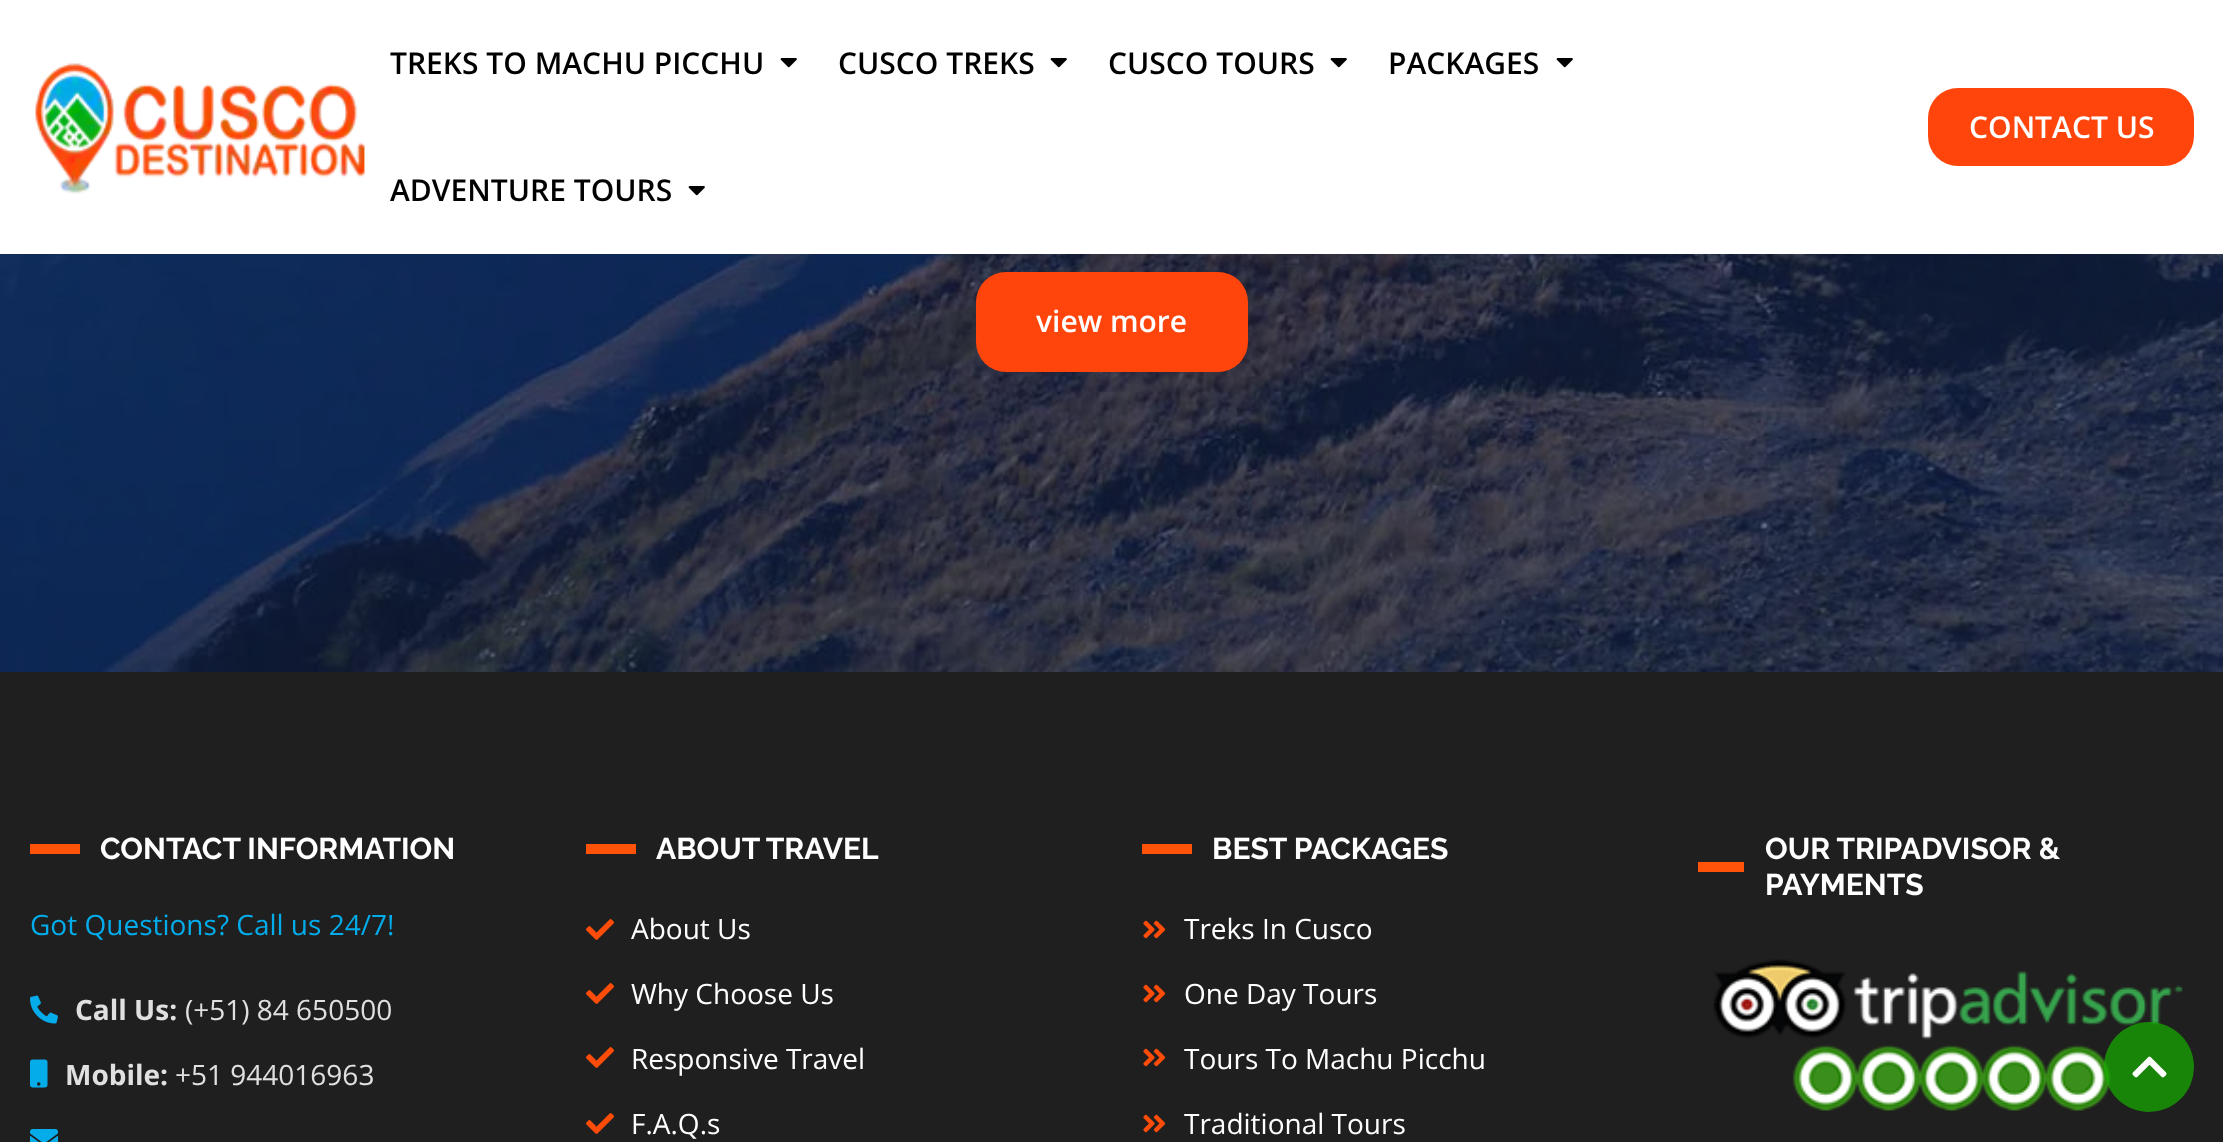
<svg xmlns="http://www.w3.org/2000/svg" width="2223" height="1142">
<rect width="100%" height="100%" fill="#201f1f"/>
<rect width="2223" height="254" fill="#fff"/>
<image x="35" y="63" width="330" height="131" href="media/1.png"/>
<text x="390" y="74" style="font-family:Open Sans;font-size:30px;font-weight:600;fill:#000">TREKS TO MACHU PICCHU</text>
<image x="780" y="58" width="17" height="10" href="media/2.png"/>
<text x="838" y="74" style="font-family:Open Sans;font-size:30px;font-weight:600;fill:#000">CUSCO TREKS</text>
<image x="1050" y="58" width="17" height="10" href="media/2.png"/>
<text x="1108" y="74" style="font-family:Open Sans;font-size:30px;font-weight:600;fill:#000">CUSCO TOURS</text>
<image x="1330" y="58" width="17" height="10" href="media/2.png"/>
<text x="1388" y="74" style="font-family:Open Sans;font-size:30px;font-weight:600;fill:#000">PACKAGES</text>
<image x="1556" y="58" width="17" height="10" href="media/2.png"/>
<text x="390" y="201" style="font-family:Open Sans;font-size:30px;font-weight:600;fill:#000">ADVENTURE TOURS</text>
<image x="688" y="186" width="17" height="10" href="media/2.png"/>
<rect x="1928" y="88" width="266" height="78" rx="30" fill="#ff450b"/>
<text x="1969" y="138" style="font-family:Open Sans;font-size:30px;font-weight:600;fill:#fff">CONTACT US</text>
<image x="0" y="254" width="2223" height="418" href="media/3.png"/>
<rect x="976" y="272" width="272" height="100" rx="30" fill="#ff450b"/>
<text x="1036" y="332" style="font-family:Open Sans;font-size:30px;font-weight:600;fill:#fff">view more</text>
<rect x="30" y="844" width="50" height="10" fill="#ff5309"/>
<text x="100" y="859" style="font-family:Raleway;font-size:30px;font-weight:bold;fill:#fff">CONTACT INFORMATION</text>
<text x="30" y="935" style="font-family:Open Sans;font-size:28px;fill:#02acea">Got Questions? Call us 24/7!</text>
<image x="30" y="995" width="28" height="29" href="media/4.png"/>
<text x="75" y="1020" style="font-family:Open Sans;font-size:28px;font-weight:bold;fill:#e0e0e0">Call Us:</text>
<text x="185" y="1020" style="font-family:Open Sans;font-size:28px;fill:#e0e0e0">(+51) 84 650500</text>
<image x="30" y="1059" width="18" height="29" href="media/5.png"/>
<text x="65" y="1085" style="font-family:Open Sans;font-size:28px;font-weight:bold;fill:#e0e0e0">Mobile:</text>
<text x="175" y="1085" style="font-family:Open Sans;font-size:28px;fill:#e0e0e0">+51 944016963</text>
<image x="30" y="1129" width="28" height="13" href="media/6.png"/>
<rect x="586" y="844" width="50" height="10" fill="#ff5309"/>
<text x="656" y="859" style="font-family:Raleway;font-size:30px;font-weight:bold;fill:#fff">ABOUT TRAVEL</text>
<image x="586" y="919" width="28" height="21" href="media/7.png"/>
<text x="631" y="939" style="font-family:Open Sans;font-size:28px;fill:#fff">About Us</text>
<image x="586" y="983" width="28" height="21" href="media/7.png"/>
<text x="631" y="1004" style="font-family:Open Sans;font-size:28px;fill:#fff">Why Choose Us</text>
<image x="586" y="1047" width="28" height="21" href="media/7.png"/>
<text x="631" y="1069" style="font-family:Open Sans;font-size:28px;fill:#fff">Responsive Travel</text>
<image x="586" y="1113" width="28" height="21" href="media/7.png"/>
<text x="631" y="1134" style="font-family:Open Sans;font-size:28px;fill:#fff">F.A.Q.s</text>
<rect x="1142" y="844" width="50" height="10" fill="#ff5309"/>
<text x="1212" y="859" style="font-family:Raleway;font-size:30px;font-weight:bold;fill:#fff">BEST PACKAGES</text>
<image x="1143" y="920" width="23" height="19" href="media/8.png"/>
<text x="1184" y="939" style="font-family:Open Sans;font-size:28px;fill:#fff">Treks In Cusco</text>
<image x="1143" y="984" width="23" height="19" href="media/8.png"/>
<text x="1184" y="1004" style="font-family:Open Sans;font-size:28px;fill:#fff">One Day Tours</text>
<image x="1143" y="1048" width="23" height="19" href="media/8.png"/>
<text x="1184" y="1069" style="font-family:Open Sans;font-size:28px;fill:#fff">Tours To Machu Picchu</text>
<image x="1143" y="1114" width="23" height="19" href="media/8.png"/>
<text x="1184" y="1134" style="font-family:Open Sans;font-size:28px;fill:#fff">Traditional Tours</text>
<text x="1765" y="859" style="font-family:Raleway;font-size:30px;font-weight:bold;fill:#fff">OUR TRIPADVISOR &amp;</text>
<rect x="1698" y="862" width="46" height="10" fill="#ff5309"/>
<text x="1765" y="895" style="font-family:Raleway;font-size:30px;font-weight:bold;fill:#fff">PAYMENTS</text>
<image x="1713" y="959" width="470" height="152" href="media/9.png"/>
<circle cx="2149" cy="1067" r="45" fill="#16b000b3"/>
<image x="2132" y="1056" width="35" height="22" href="media/10.png"/>
</svg>
